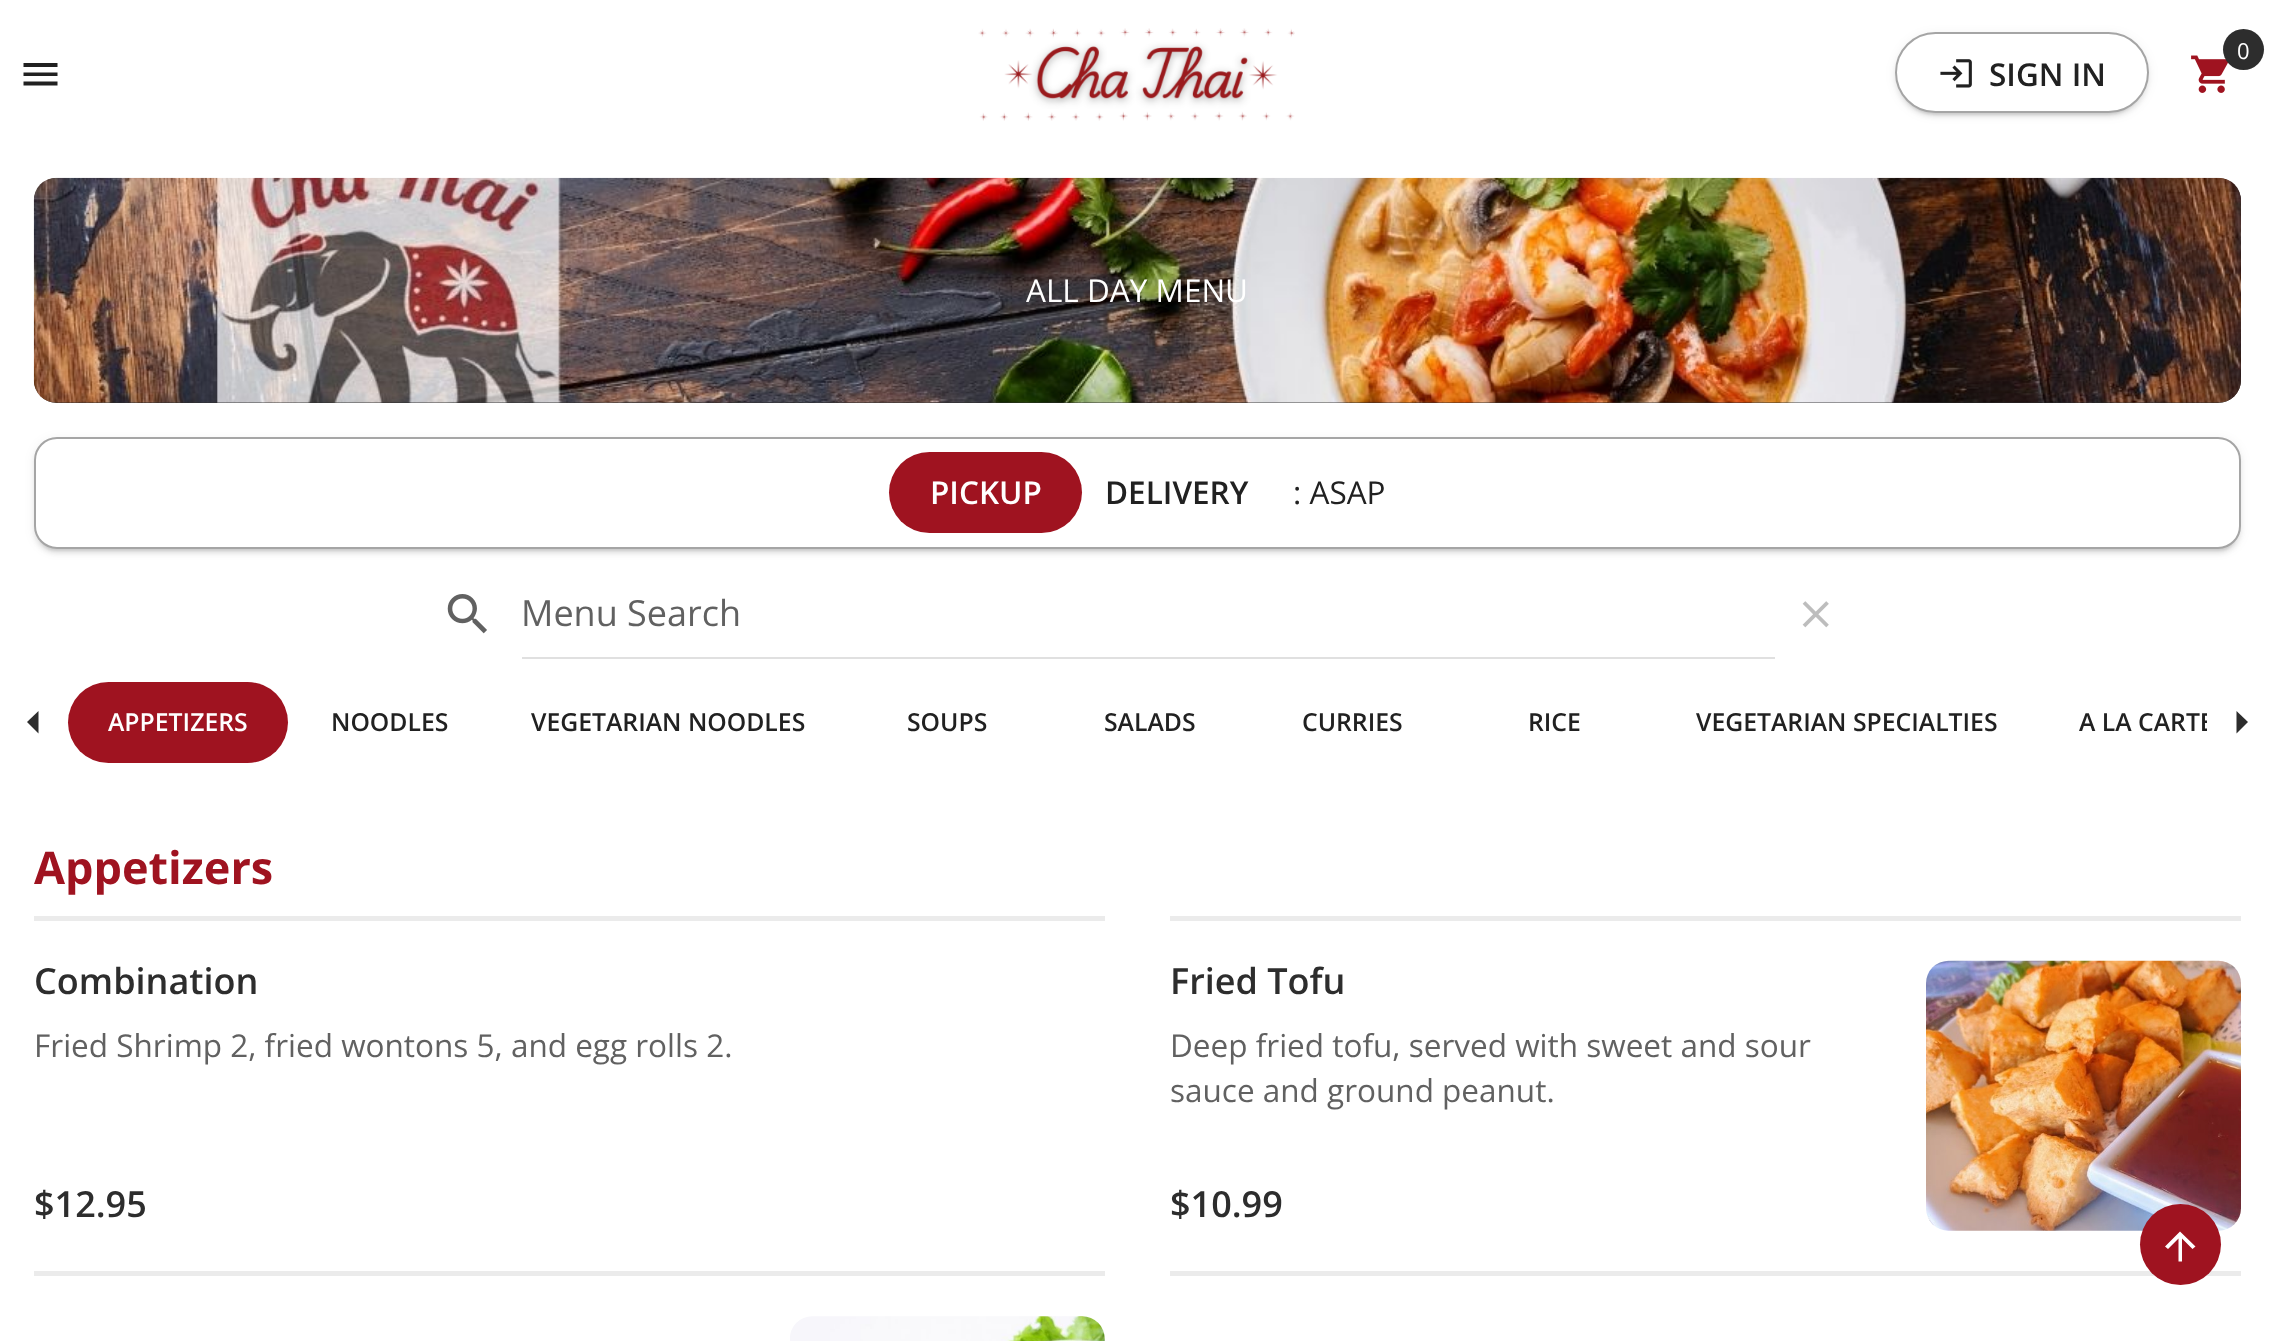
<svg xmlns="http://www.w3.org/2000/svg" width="2273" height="1341">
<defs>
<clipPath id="clip1"><rect x="68" y="668" width="2139" height="108"/></clipPath>
</defs>
<rect width="100%" height="100%" fill="#fff"/>
<path d="M23.5 63h34v4h-34zm0 13v-3.5h34v3.5zm0 9.5v-4h34v4z" fill="#212121"/>
<image x="978" y="28" width="317" height="93" href="media/1.png"/>
<image x="2191" y="55" width="37" height="38" href="media/2.png"/>
<circle cx="2243.5" cy="49.5" r="20.5" fill="#2d2d2d"/>
<text x="2237" y="59" style="font-family:Open Sans;font-size:22px;fill:#fff">0</text>
<rect x="1895" y="34" width="254" height="81" rx="40.5" fill="#0000000f" filter="blur(5.5px)"/>
<rect x="1899" y="43" width="245" height="72" rx="36" fill="#0000001a" filter="blur(1px)"/>
<rect x="1895" y="36" width="254" height="81" rx="40.5" fill="#00000012" filter="blur(2px)"/>
<rect x="1896" y="33" width="252" height="79" rx="39.5" fill="#fff" stroke="#a5a5a5" stroke-width="2"/>
<image x="1940" y="59" width="32" height="29" href="media/3.png"/>
<text x="1989" y="86" style="font-family:Open Sans;font-size:31.5px;font-weight:600;fill:#212121">SIGN IN</text>
<rect x="34" y="178" width="2207" height="225" rx="23" fill="#2d2d2d"/>
<image x="33" y="177" width="2208" height="226" href="media/4.png"/>
<text x="1026" y="302" style="font-family:Open Sans;font-size:31.5px;fill:#fff">ALL DAY MENU</text>
<rect x="34" y="439" width="2207" height="112" rx="23" fill="#0000000f" filter="blur(5.5px)"/>
<rect x="38" y="448" width="2199" height="103" rx="18" fill="#0000001a" filter="blur(1px)"/>
<rect x="34" y="441" width="2207" height="113" rx="23" fill="#00000012" filter="blur(2px)"/>
<rect x="35" y="438" width="2205" height="110" rx="22" fill="#fff" stroke="#a5a5a5" stroke-width="2"/>
<rect x="889" y="452" width="193" height="81" rx="40.5" fill="#9f1320"/>
<text x="930" y="504" style="font-family:Open Sans;font-size:31.5px;font-weight:600;fill:#fff">PICKUP</text>
<text x="1105" y="504" style="font-family:Open Sans;font-size:31.5px;font-weight:600;fill:#212121">DELIVERY</text>
<text x="1293" y="504" style="font-family:Open Sans;font-size:31.5px;fill:#212121">: ASAP</text>
<image x="447" y="594" width="40" height="40" href="media/5.png"/>
<text x="521" y="626" style="font-family:Open Sans;font-size:36px;fill:#616161">Menu Search</text>
<rect x="522" y="657" width="1253" height="2" fill="#e0e0e0"/>
<image x="1802" y="601" width="27" height="27" href="media/6.png"/>
<path d="M38.5 711v22.5l-11.5-11.5z" fill="#2d2d2d"/>
<rect x="68" y="682" width="220" height="81" rx="40.5" fill="#9f1320"/>
<text x="108" y="731" style="font-family:Open Sans;font-size:24.75px;font-weight:600;fill:#fff">APPETIZERS</text>
<text x="331" y="731" style="font-family:Open Sans;font-size:24.75px;font-weight:600;fill:#212121">NOODLES</text>
<text x="531" y="731" style="font-family:Open Sans;font-size:24.75px;font-weight:600;fill:#212121">VEGETARIAN NOODLES</text>
<text x="907" y="731" style="font-family:Open Sans;font-size:24.75px;font-weight:600;fill:#212121">SOUPS</text>
<text x="1104" y="731" style="font-family:Open Sans;font-size:24.75px;font-weight:600;fill:#212121">SALADS</text>
<text x="1302" y="731" style="font-family:Open Sans;font-size:24.75px;font-weight:600;fill:#212121">CURRIES</text>
<text x="1528" y="731" style="font-family:Open Sans;font-size:24.75px;font-weight:600;fill:#212121">RICE</text>
<text x="1696" y="731" style="font-family:Open Sans;font-size:24.75px;font-weight:600;fill:#212121">VEGETARIAN SPECIALTIES</text>
<g clip-path="url(#clip1)">
<text x="2079" y="731" style="font-family:Open Sans;font-size:24.75px;font-weight:600;fill:#212121">A LA CARTE</text>
</g>
<path d="M2236.5 733.5v-22.5l11.5 11z" fill="#2d2d2d"/>
<text x="34" y="884" style="font-family:Open Sans;font-size:45px;font-weight:bold;fill:#9f1320">Appetizers</text>
<rect x="34" y="916" width="1071" height="5" fill="#ebebeb"/>
<text x="34" y="994" style="font-family:Open Sans;font-size:36px;font-weight:600;fill:#2d2d2d">Combination</text>
<text x="34" y="1057" style="font-family:Open Sans;font-size:31.5px;fill:#616161">Fried Shrimp 2, fried wontons 5, and egg rolls 2.</text>
<text x="34" y="1217" style="font-family:Open Sans;font-size:36px;font-weight:600;fill:#2d2d2d">$12.95</text>
<rect x="1170" y="916" width="1071" height="5" fill="#ebebeb"/>
<text x="1170" y="994" style="font-family:Open Sans;font-size:36px;font-weight:600;fill:#2d2d2d">Fried Tofu</text>
<text x="1170" y="1057" style="font-family:Open Sans;font-size:31.5px;fill:#616161">Deep fried tofu, served with sweet and sour</text>
<text x="1170" y="1102" style="font-family:Open Sans;font-size:31.5px;fill:#616161">sauce and ground peanut.</text>
<text x="1170" y="1217" style="font-family:Open Sans;font-size:36px;font-weight:600;fill:#2d2d2d">$10.99</text>
<image x="1926" y="960" width="315" height="271" href="media/7.png"/>
<rect x="34" y="1271" width="1071" height="5" fill="#ebebeb"/>
<image x="790" y="1316" width="315" height="25" href="media/8.png"/>
<rect x="1170" y="1271" width="1071" height="5" fill="#ebebeb"/>
<circle cx="2180.5" cy="1244.5" r="40.5" fill="#9f1320"/>
<path d="M2165 1246.5l15-15l15.5 15l-3 2.5l-10.5-10.5v23h-3.5v-23l-10.5 10.5z" fill="#fff"/>
</svg>
